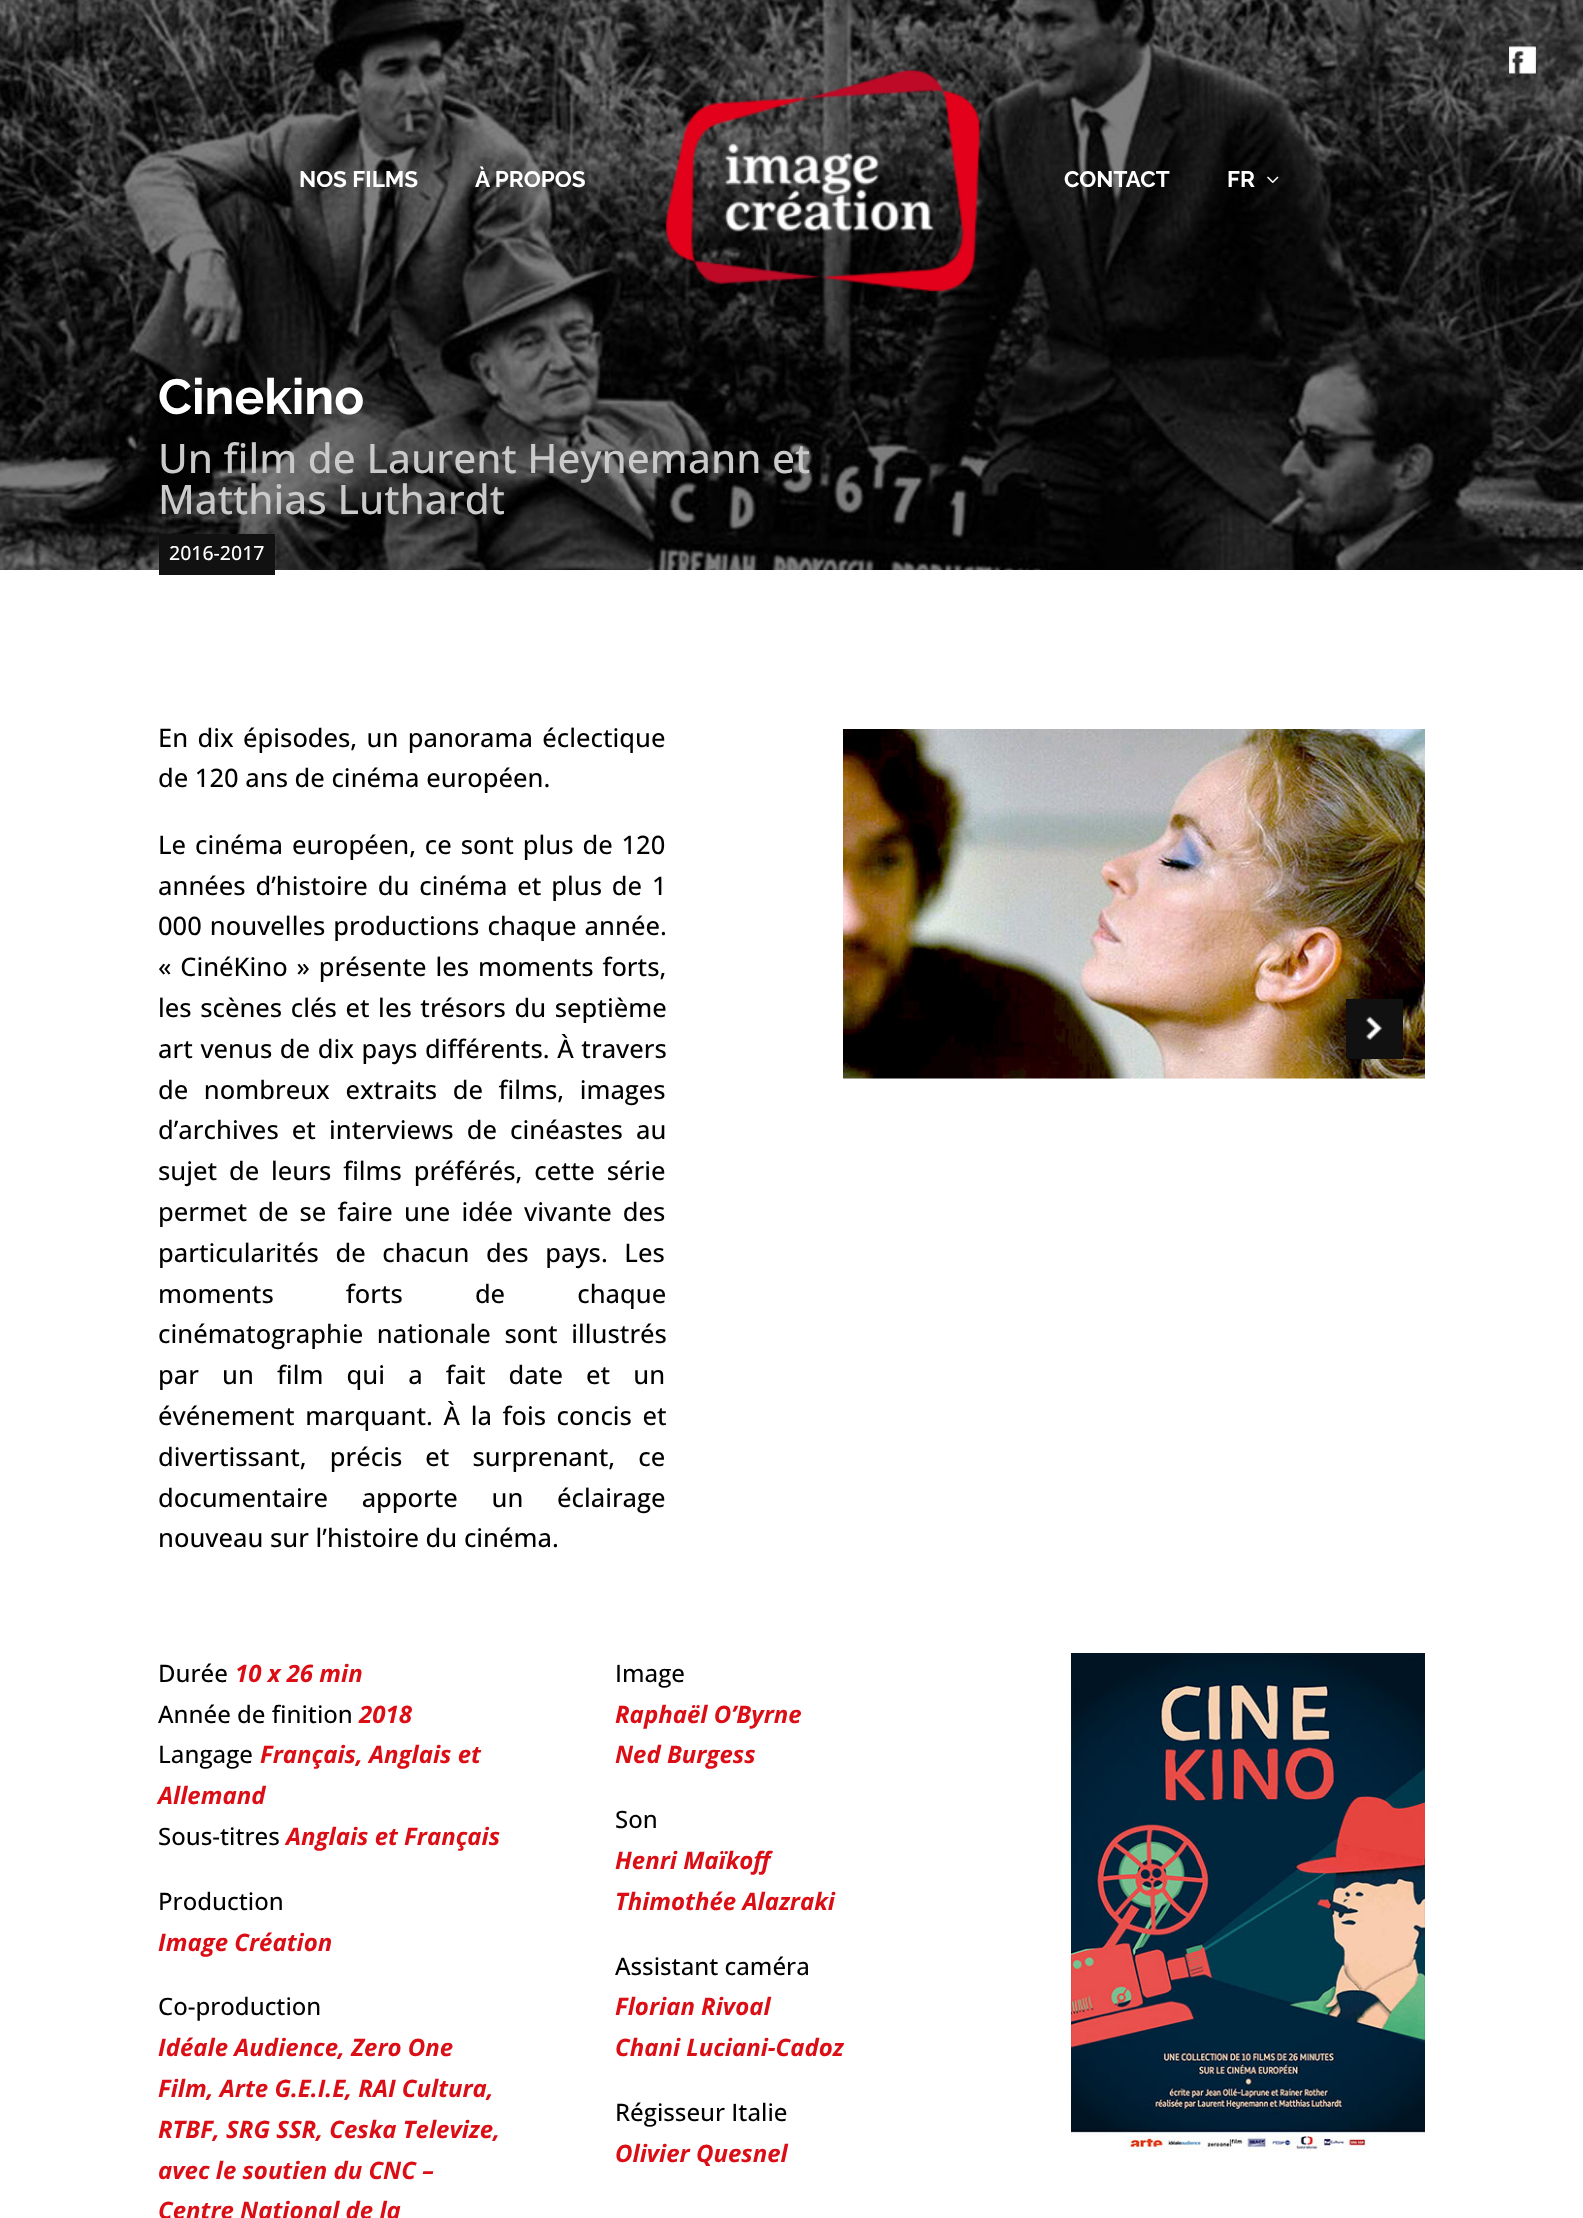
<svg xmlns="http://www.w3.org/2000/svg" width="1583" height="2218">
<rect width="100%" height="100%" fill="#fff"/>
<rect width="1583" height="570" fill="#000"/>
<image x="0" y="0" width="1583" height="570" href="media/3.png"/>
<text x="299" y="187" style="font-family:Raleway;font-size:22.5px;font-weight:bold;fill:#fff">NOS FILMS</text>
<text x="475" y="187" style="font-family:Raleway;font-size:22.5px;font-weight:bold;fill:#fff">À PROPOS</text>
<image x="665" y="70" width="315" height="222" href="media/1.png"/>
<text x="1064" y="187" style="font-family:Raleway;font-size:22.5px;font-weight:bold;fill:#fff">CONTACT</text>
<text x="1227" y="187" style="font-family:Raleway;font-size:22.5px;font-weight:bold;fill:#fff">FR</text>
<image x="1267" y="176" width="12" height="7" href="media/2.png"/>
<image x="1509" y="46" width="27" height="28" href="media/4.png"/>
<text x="158" y="414" style="font-family:Raleway;font-size:49.5px;font-weight:bold;fill:#fff">Cinekino</text>
<text x="158" y="473" style="font-family:Open Sans;font-size:40.5px;font-weight:500;fill:#cacaca">Un film de Laurent Heynemann et</text>
<text x="158" y="514" style="font-family:Open Sans;font-size:40.5px;font-weight:500;fill:#cacaca">Matthias Luthardt</text>
<rect x="159" y="534" width="116" height="41" fill="#111"/>
<text x="169" y="560" style="font-family:Open Sans;font-size:19.5px;font-weight:500;fill:#fff">2016-2017</text>
<text x="158" y="747" word-spacing="2.75" style="font-family:Open Sans;font-size:25.5px;font-weight:500;fill:#000">En dix épisodes, un panorama éclectique</text>
<text x="158" y="787" style="font-family:Open Sans;font-size:25.5px;font-weight:500;fill:#000">de 120 ans de cinéma européen.</text>
<text x="158" y="854" word-spacing="2.25" style="font-family:Open Sans;font-size:25.5px;font-weight:500;fill:#000">Le cinéma européen, ce sont plus de 120</text>
<text x="158" y="895" word-spacing="3.25" style="font-family:Open Sans;font-size:25.5px;font-weight:500;fill:#000">années d’histoire du cinéma et plus de 1</text>
<text x="158" y="935" word-spacing="1.5" style="font-family:Open Sans;font-size:25.5px;font-weight:500;fill:#000">000 nouvelles productions chaque année.</text>
<text x="158" y="976" word-spacing="2.25" style="font-family:Open Sans;font-size:25.5px;font-weight:500;fill:#000">« CinéKino » présente les moments forts,</text>
<text x="158" y="1017" word-spacing="2" style="font-family:Open Sans;font-size:25.5px;font-weight:500;fill:#000">les scènes clés et les trésors du septième</text>
<text x="158" y="1058" word-spacing="1" style="font-family:Open Sans;font-size:25.5px;font-weight:500;fill:#000">art venus de dix pays différents. À travers</text>
<text x="158" y="1099" word-spacing="9" style="font-family:Open Sans;font-size:25.5px;font-weight:500;fill:#000">de nombreux extraits de films, images</text>
<text x="158" y="1139" word-spacing="6.5" style="font-family:Open Sans;font-size:25.5px;font-weight:500;fill:#000">d’archives et interviews de cinéastes au</text>
<text x="158" y="1180" word-spacing="5.25" style="font-family:Open Sans;font-size:25.5px;font-weight:500;fill:#000">sujet de leurs films préférés, cette série</text>
<text x="158" y="1221" word-spacing="4.5" style="font-family:Open Sans;font-size:25.5px;font-weight:500;fill:#000">permet de se faire une idée vivante des</text>
<text x="158" y="1262" word-spacing="10" style="font-family:Open Sans;font-size:25.5px;font-weight:500;fill:#000">particularités de chacun des pays. Les</text>
<text x="158" y="1303" word-spacing="65.5" style="font-family:Open Sans;font-size:25.5px;font-weight:500;fill:#000">moments forts de chaque</text>
<text x="158" y="1343" word-spacing="7" style="font-family:Open Sans;font-size:25.5px;font-weight:500;fill:#000">cinématographie nationale sont illustrés</text>
<text x="158" y="1384" word-spacing="16.5" style="font-family:Open Sans;font-size:25.5px;font-weight:500;fill:#000">par un film qui a fait date et un</text>
<text x="158" y="1425" word-spacing="4" style="font-family:Open Sans;font-size:25.5px;font-weight:500;fill:#000">événement marquant. À la fois concis et</text>
<text x="158" y="1466" word-spacing="16.5" style="font-family:Open Sans;font-size:25.5px;font-weight:500;fill:#000">divertissant, précis et surprenant, ce</text>
<text x="158" y="1507" word-spacing="27" style="font-family:Open Sans;font-size:25.5px;font-weight:500;fill:#000">documentaire apporte un éclairage</text>
<text x="158" y="1547" style="font-family:Open Sans;font-size:25.5px;font-weight:500;fill:#000">nouveau sur l’histoire du cinéma.</text>
<image x="843" y="729" width="582" height="350" href="media/5.png"/>
<rect x="1346" y="999" width="57" height="60" fill="#111"/>
<image x="1366" y="1016" width="16" height="24" href="media/6.png"/>
<text x="158" y="1682" style="font-family:Open Sans;font-size:24px;font-weight:500;fill:#000">Durée</text>
<text x="235" y="1682" style="font-family:Open Sans;font-size:24px;font-weight:bold;font-style:italic;fill:#db0d15">10 x 26 min</text>
<text x="158" y="1723" style="font-family:Open Sans;font-size:24px;font-weight:500;fill:#000">Année de finition</text>
<text x="359" y="1723" style="font-family:Open Sans;font-size:24px;font-weight:bold;font-style:italic;fill:#db0d15">2018</text>
<text x="158" y="1763" style="font-family:Open Sans;font-size:24px;font-weight:500;fill:#000">Langage</text>
<text x="260" y="1763" style="font-family:Open Sans;font-size:24px;font-weight:bold;font-style:italic;fill:#db0d15">Français, Anglais et</text>
<text x="158" y="1804" style="font-family:Open Sans;font-size:24px;font-weight:bold;font-style:italic;fill:#db0d15">Allemand</text>
<text x="158" y="1845" style="font-family:Open Sans;font-size:24px;font-weight:500;fill:#000">Sous-titres</text>
<text x="286" y="1845" style="font-family:Open Sans;font-size:24px;font-weight:bold;font-style:italic;fill:#db0d15">Anglais et Français</text>
<text x="158" y="1910" style="font-family:Open Sans;font-size:24px;font-weight:500;fill:#000">Production</text>
<text x="158" y="1951" style="font-family:Open Sans;font-size:24px;font-weight:bold;font-style:italic;fill:#db0d15">Image Création</text>
<text x="158" y="2015" style="font-family:Open Sans;font-size:24px;font-weight:500;fill:#000">Co-production</text>
<text x="158" y="2056" style="font-family:Open Sans;font-size:24px;font-weight:bold;font-style:italic;fill:#db0d15">Idéale Audience, Zero One</text>
<text x="158" y="2097" style="font-family:Open Sans;font-size:24px;font-weight:bold;font-style:italic;fill:#db0d15">Film, Arte G.E.I.E, RAI Cultura,</text>
<text x="158" y="2138" style="font-family:Open Sans;font-size:24px;font-weight:bold;font-style:italic;fill:#db0d15">RTBF, SRG SSR, Ceska Televize,</text>
<text x="158" y="2179" style="font-family:Open Sans;font-size:24px;font-weight:bold;font-style:italic;fill:#db0d15">avec le soutien du CNC –</text>
<text x="158" y="2219" style="font-family:Open Sans;font-size:24px;font-weight:bold;font-style:italic;fill:#db0d15">Centre National de la</text>
<text x="615" y="1682" style="font-family:Open Sans;font-size:24px;font-weight:500;fill:#000">Image</text>
<text x="615" y="1723" style="font-family:Open Sans;font-size:24px;font-weight:bold;font-style:italic;fill:#db0d15">Raphaël O’Byrne</text>
<text x="615" y="1763" style="font-family:Open Sans;font-size:24px;font-weight:bold;font-style:italic;fill:#db0d15">Ned Burgess</text>
<text x="615" y="1828" style="font-family:Open Sans;font-size:24px;font-weight:500;fill:#000">Son</text>
<text x="615" y="1869" style="font-family:Open Sans;font-size:24px;font-weight:bold;font-style:italic;fill:#db0d15">Henri Maïkoff</text>
<text x="615" y="1910" style="font-family:Open Sans;font-size:24px;font-weight:bold;font-style:italic;fill:#db0d15">Thimothée Alazraki</text>
<text x="615" y="1975" style="font-family:Open Sans;font-size:24px;font-weight:500;fill:#000">Assistant caméra</text>
<text x="615" y="2015" style="font-family:Open Sans;font-size:24px;font-weight:bold;font-style:italic;fill:#db0d15">Florian Rivoal</text>
<text x="615" y="2056" style="font-family:Open Sans;font-size:24px;font-weight:bold;font-style:italic;fill:#db0d15">Chani Luciani-Cadoz</text>
<text x="615" y="2121" style="font-family:Open Sans;font-size:24px;font-weight:500;fill:#000">Régisseur Italie</text>
<text x="615" y="2162" style="font-family:Open Sans;font-size:24px;font-weight:bold;font-style:italic;fill:#db0d15">Olivier Quesnel</text>
<image x="1071" y="1653" width="354" height="499" href="media/7.png"/>
</svg>
